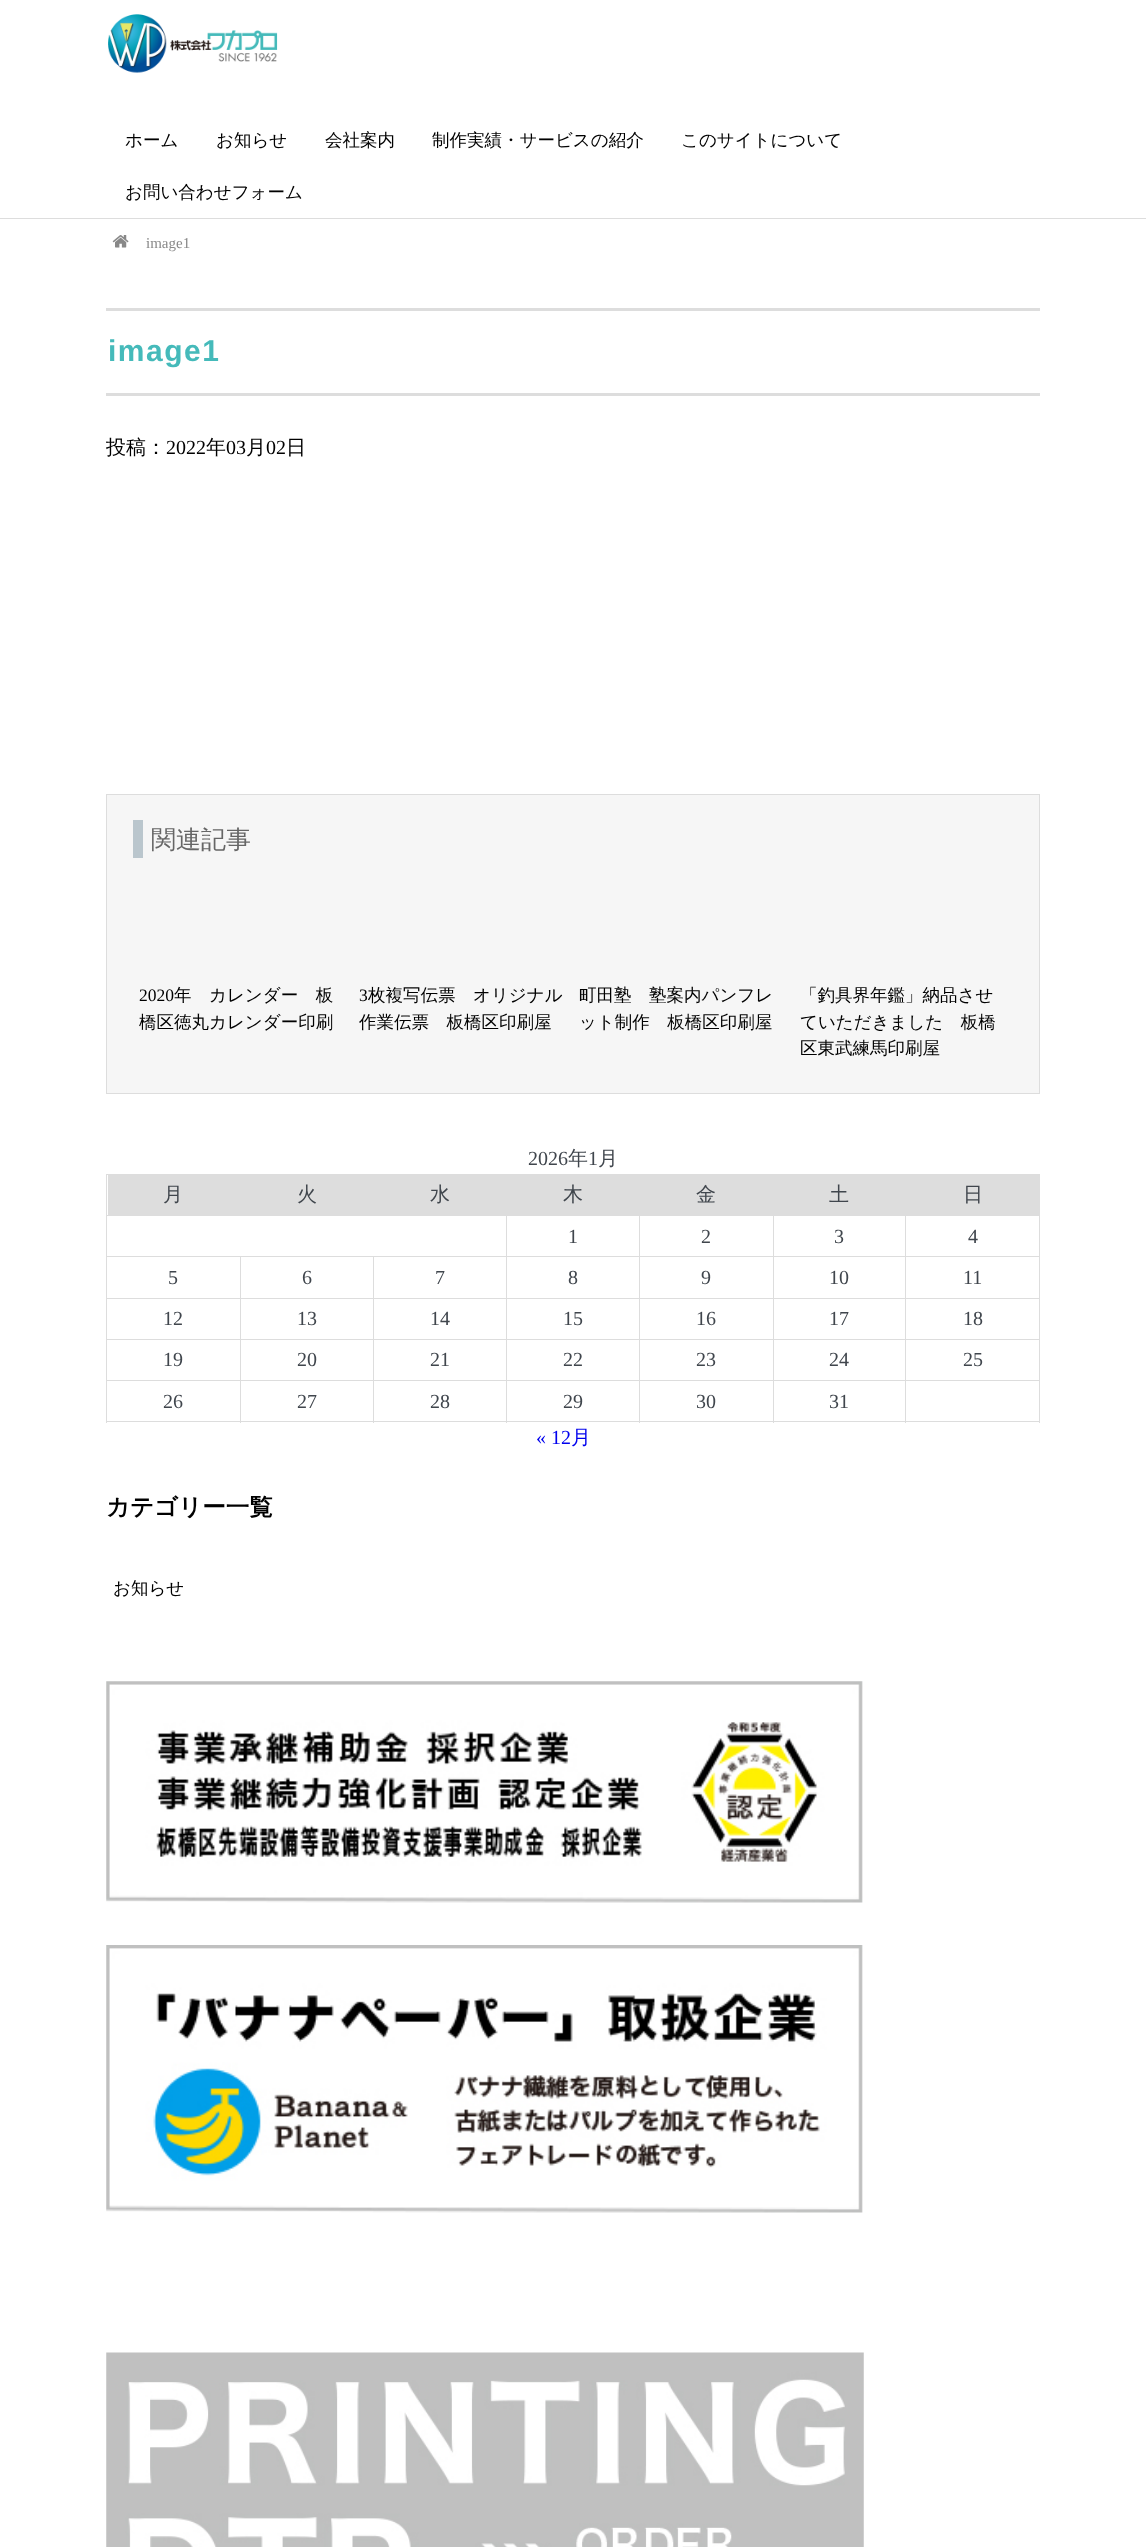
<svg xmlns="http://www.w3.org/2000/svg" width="1146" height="2547">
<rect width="100%" height="100%" fill="#fff"/>
<rect y="218" width="1146" height="1" fill="#ddd"/>
<image x="108" y="14" width="170" height="59" href="media/1.png"/>
<text x="125" y="146" style="font-family:WenQuanYi Zen Hei;font-size:17.5px;font-weight:500;fill:#000">ホーム</text>
<text x="216" y="146" style="font-family:WenQuanYi Zen Hei;font-size:17.5px;font-weight:500;fill:#000">お知らせ</text>
<text x="325" y="146" style="font-family:WenQuanYi Zen Hei;font-size:17.5px;font-weight:500;fill:#000">会社案内</text>
<text x="432" y="146" style="font-family:WenQuanYi Zen Hei;font-size:17.5px;font-weight:500;fill:#000">制作実績・サービスの紹介</text>
<text x="681" y="146" style="font-family:WenQuanYi Zen Hei;font-size:17.5px;font-weight:500;fill:#000">このサイトについて</text>
<text x="125" y="198" style="font-family:WenQuanYi Zen Hei;font-size:17.5px;font-weight:500;fill:#000">お問い合わせフォーム</text>
<image x="112" y="235" width="17" height="13" href="media/2.png"/>
<text x="146" y="248" style="font-family:Liberation Serif;font-size:15px;fill:#888">image1</text>
<rect x="106" y="308" width="934" height="3" fill="#ddd"/>
<rect x="106" y="393" width="934" height="3" fill="#ddd"/>
<text x="108" y="361" style="font-family:Liberation Sans;font-size:30px;font-weight:bold;letter-spacing:1.5px;fill:#45baba">image1</text>
<text x="106" y="454" style="font-family:WenQuanYi Zen Hei;font-size:20px;font-weight:500;fill:#000">投稿：</text>
<text x="166" y="454" style="font-family:Liberation Serif;font-size:20px;fill:#000">2022</text>
<text x="206" y="454" style="font-family:WenQuanYi Zen Hei;font-size:20px;font-weight:500;fill:#000">年</text>
<text x="226" y="454" style="font-family:Liberation Serif;font-size:20px;fill:#000">03</text>
<text x="246" y="454" style="font-family:WenQuanYi Zen Hei;font-size:20px;font-weight:500;fill:#000">月</text>
<text x="266" y="454" style="font-family:Liberation Serif;font-size:20px;fill:#000">02</text>
<text x="286" y="454" style="font-family:WenQuanYi Zen Hei;font-size:20px;font-weight:500;fill:#000">日</text>
<rect x="106.5" y="794.5" width="933" height="299" fill="#f6f6f6" stroke="#ddd"/>
<rect x="133" y="820" width="10" height="38" fill="#bac6cd"/>
<text x="151" y="848" style="font-family:WenQuanYi Zen Hei;font-size:25px;font-weight:500;fill:#666">関連記事</text>
<text x="139" y="1001" style="font-family:Liberation Serif;font-size:17.5px;fill:#000">2020</text>
<text x="174" y="1001" style="font-family:WenQuanYi Zen Hei;font-size:17.5px;font-weight:500;fill:#000">年　カレンダー　板</text>
<text x="139" y="1028" style="font-family:WenQuanYi Zen Hei;font-size:17.5px;font-weight:500;fill:#000">橋区徳丸カレンダー印刷</text>
<text x="359" y="1001" style="font-family:Liberation Serif;font-size:17.5px;fill:#000">3</text>
<text x="368" y="1001" style="font-family:WenQuanYi Zen Hei;font-size:17.5px;font-weight:500;fill:#000">枚複写伝票　オリジナル</text>
<text x="359" y="1028" style="font-family:WenQuanYi Zen Hei;font-size:17.5px;font-weight:500;fill:#000">作業伝票　板橋区印刷屋</text>
<text x="579" y="1001" style="font-family:WenQuanYi Zen Hei;font-size:17.5px;font-weight:500;fill:#000">町田塾　塾案内パンフレ</text>
<text x="579" y="1028" style="font-family:WenQuanYi Zen Hei;font-size:17.5px;font-weight:500;fill:#000">ット制作　板橋区印刷屋</text>
<text x="800" y="1001" style="font-family:WenQuanYi Zen Hei;font-size:17.5px;font-weight:500;fill:#000">「釣具界年鑑」納品させ</text>
<text x="800" y="1028" style="font-family:WenQuanYi Zen Hei;font-size:17.5px;font-weight:500;fill:#000">ていただきました　板橋</text>
<text x="800" y="1054" style="font-family:WenQuanYi Zen Hei;font-size:17.5px;font-weight:500;fill:#000">区東武練馬印刷屋</text>
<text x="528" y="1165" style="font-family:Liberation Serif;font-size:20px;fill:#40464d">2026</text>
<text x="568" y="1165" style="font-family:WenQuanYi Zen Hei;font-size:20px;font-weight:500;fill:#40464d">年</text>
<text x="588" y="1165" style="font-family:Liberation Serif;font-size:20px;fill:#40464d">1</text>
<text x="598" y="1165" style="font-family:WenQuanYi Zen Hei;font-size:20px;font-weight:500;fill:#40464d">月</text>
<rect x="108" y="1175" width="398" height="40" fill="#ddd"/>
<rect x="106" y="1174" width="934" height="1" fill="#ddd"/>
<rect x="506" y="1175" width="534" height="41" fill="#ddd"/>
<rect x="905" y="1256" width="135" height="1" fill="#ddd"/>
<rect x="905" y="1298" width="135" height="1" fill="#ddd"/>
<rect x="905" y="1339" width="135" height="1" fill="#ddd"/>
<rect x="905" y="1380" width="135" height="1" fill="#ddd"/>
<rect x="1039" y="1380" width="1" height="43" fill="#ddd"/>
<rect x="905" y="1421" width="135" height="1" fill="#ddd"/>
<rect x="905" y="1380" width="1" height="43" fill="#ddd"/>
<rect x="773" y="1380" width="133" height="1" fill="#ddd"/>
<rect x="905" y="1339" width="1" height="42" fill="#ddd"/>
<rect x="773" y="1339" width="133" height="1" fill="#ddd"/>
<rect x="905" y="1298" width="1" height="42" fill="#ddd"/>
<rect x="773" y="1298" width="133" height="1" fill="#ddd"/>
<rect x="905" y="1256" width="1" height="43" fill="#ddd"/>
<rect x="773" y="1256" width="133" height="1" fill="#ddd"/>
<rect x="773" y="1421" width="133" height="1" fill="#ddd"/>
<rect x="773" y="1380" width="1" height="43" fill="#ddd"/>
<rect x="639" y="1380" width="135" height="1" fill="#ddd"/>
<rect x="773" y="1339" width="1" height="42" fill="#ddd"/>
<rect x="639" y="1339" width="135" height="1" fill="#ddd"/>
<rect x="773" y="1298" width="1" height="42" fill="#ddd"/>
<rect x="639" y="1298" width="135" height="1" fill="#ddd"/>
<rect x="773" y="1256" width="1" height="43" fill="#ddd"/>
<rect x="639" y="1256" width="135" height="1" fill="#ddd"/>
<rect x="639" y="1421" width="135" height="1" fill="#ddd"/>
<rect x="639" y="1380" width="1" height="43" fill="#ddd"/>
<rect x="506" y="1380" width="134" height="1" fill="#ddd"/>
<rect x="639" y="1339" width="1" height="42" fill="#ddd"/>
<rect x="506" y="1339" width="134" height="1" fill="#ddd"/>
<rect x="639" y="1298" width="1" height="42" fill="#ddd"/>
<rect x="506" y="1298" width="134" height="1" fill="#ddd"/>
<rect x="639" y="1256" width="1" height="43" fill="#ddd"/>
<rect x="506" y="1256" width="134" height="1" fill="#ddd"/>
<rect x="506" y="1421" width="134" height="1" fill="#ddd"/>
<rect x="506" y="1380" width="1" height="43" fill="#ddd"/>
<rect x="373" y="1380" width="135" height="1" fill="#ddd"/>
<rect x="506" y="1339" width="1" height="42" fill="#ddd"/>
<rect x="373" y="1339" width="135" height="1" fill="#ddd"/>
<rect x="506" y="1298" width="1" height="42" fill="#ddd"/>
<rect x="373" y="1298" width="135" height="1" fill="#ddd"/>
<rect x="506" y="1256" width="1" height="43" fill="#ddd"/>
<rect x="373" y="1256" width="135" height="1" fill="#ddd"/>
<rect x="506" y="1215" width="1" height="43" fill="#ddd"/>
<rect x="106" y="1215" width="402" height="1" fill="#ddd"/>
<rect x="373" y="1421" width="135" height="1" fill="#ddd"/>
<rect x="373" y="1380" width="1" height="43" fill="#ddd"/>
<rect x="240" y="1380" width="134" height="1" fill="#ddd"/>
<rect x="373" y="1339" width="1" height="42" fill="#ddd"/>
<rect x="240" y="1339" width="134" height="1" fill="#ddd"/>
<rect x="373" y="1298" width="1" height="42" fill="#ddd"/>
<rect x="240" y="1298" width="134" height="1" fill="#ddd"/>
<rect x="373" y="1256" width="1" height="43" fill="#ddd"/>
<rect x="240" y="1256" width="134" height="1" fill="#ddd"/>
<rect x="240" y="1421" width="134" height="1" fill="#ddd"/>
<rect x="240" y="1380" width="1" height="43" fill="#ddd"/>
<rect x="106" y="1380" width="135" height="1" fill="#ddd"/>
<rect x="240" y="1339" width="1" height="42" fill="#ddd"/>
<rect x="106" y="1339" width="135" height="1" fill="#ddd"/>
<rect x="240" y="1298" width="1" height="42" fill="#ddd"/>
<rect x="106" y="1298" width="135" height="1" fill="#ddd"/>
<rect x="240" y="1256" width="1" height="43" fill="#ddd"/>
<rect x="106" y="1256" width="135" height="1" fill="#ddd"/>
<rect x="106" y="1421" width="135" height="1" fill="#ddd"/>
<rect x="106" y="1380" width="1" height="43" fill="#ddd"/>
<rect x="106" y="1339" width="1" height="42" fill="#ddd"/>
<rect x="106" y="1298" width="1" height="42" fill="#ddd"/>
<rect x="106" y="1256" width="1" height="43" fill="#ddd"/>
<rect x="106" y="1215" width="1" height="43" fill="#ddd"/>
<rect x="106" y="1174" width="1" height="42" fill="#ddd"/>
<text x="163" y="1201" style="font-family:WenQuanYi Zen Hei;font-size:20px;font-weight:500;fill:#40464d">月</text>
<text x="297" y="1201" style="font-family:WenQuanYi Zen Hei;font-size:20px;font-weight:500;fill:#40464d">火</text>
<text x="430" y="1201" style="font-family:WenQuanYi Zen Hei;font-size:20px;font-weight:500;fill:#40464d">水</text>
<text x="563" y="1201" style="font-family:WenQuanYi Zen Hei;font-size:20px;font-weight:500;fill:#40464d">木</text>
<text x="696" y="1201" style="font-family:WenQuanYi Zen Hei;font-size:20px;font-weight:500;fill:#40464d">金</text>
<text x="829" y="1201" style="font-family:WenQuanYi Zen Hei;font-size:20px;font-weight:500;fill:#40464d">土</text>
<text x="963" y="1201" style="font-family:WenQuanYi Zen Hei;font-size:20px;font-weight:500;fill:#40464d">日</text>
<text x="568" y="1243" style="font-family:Liberation Serif;font-size:20px;fill:#40464d">1</text>
<rect x="639" y="1215" width="1" height="43" fill="#ddd"/>
<text x="701" y="1243" style="font-family:Liberation Serif;font-size:20px;fill:#40464d">2</text>
<rect x="773" y="1215" width="1" height="43" fill="#ddd"/>
<text x="834" y="1243" style="font-family:Liberation Serif;font-size:20px;fill:#40464d">3</text>
<rect x="905" y="1215" width="1" height="43" fill="#ddd"/>
<text x="968" y="1243" style="font-family:Liberation Serif;font-size:20px;fill:#40464d">4</text>
<text x="168" y="1284" style="font-family:Liberation Serif;font-size:20px;fill:#40464d">5</text>
<text x="302" y="1284" style="font-family:Liberation Serif;font-size:20px;fill:#40464d">6</text>
<text x="435" y="1284" style="font-family:Liberation Serif;font-size:20px;fill:#40464d">7</text>
<text x="568" y="1284" style="font-family:Liberation Serif;font-size:20px;fill:#40464d">8</text>
<text x="701" y="1284" style="font-family:Liberation Serif;font-size:20px;fill:#40464d">9</text>
<text x="829" y="1284" style="font-family:Liberation Serif;font-size:20px;fill:#40464d">10</text>
<rect x="1039" y="1339" width="1" height="42" fill="#ddd"/>
<rect x="1039" y="1298" width="1" height="42" fill="#ddd"/>
<rect x="1039" y="1215" width="1" height="84" fill="#ddd"/>
<text x="963" y="1284" style="font-family:Liberation Serif;font-size:20px;fill:#40464d">11</text>
<text x="163" y="1325" style="font-family:Liberation Serif;font-size:20px;fill:#40464d">12</text>
<text x="297" y="1325" style="font-family:Liberation Serif;font-size:20px;fill:#40464d">13</text>
<text x="430" y="1325" style="font-family:Liberation Serif;font-size:20px;fill:#40464d">14</text>
<text x="563" y="1325" style="font-family:Liberation Serif;font-size:20px;fill:#40464d">15</text>
<text x="696" y="1325" style="font-family:Liberation Serif;font-size:20px;fill:#40464d">16</text>
<text x="829" y="1325" style="font-family:Liberation Serif;font-size:20px;fill:#40464d">17</text>
<text x="963" y="1325" style="font-family:Liberation Serif;font-size:20px;fill:#40464d">18</text>
<text x="163" y="1366" style="font-family:Liberation Serif;font-size:20px;fill:#40464d">19</text>
<text x="297" y="1366" style="font-family:Liberation Serif;font-size:20px;fill:#40464d">20</text>
<text x="430" y="1366" style="font-family:Liberation Serif;font-size:20px;fill:#40464d">21</text>
<text x="563" y="1366" style="font-family:Liberation Serif;font-size:20px;fill:#40464d">22</text>
<text x="696" y="1366" style="font-family:Liberation Serif;font-size:20px;fill:#40464d">23</text>
<text x="829" y="1366" style="font-family:Liberation Serif;font-size:20px;fill:#40464d">24</text>
<text x="963" y="1366" style="font-family:Liberation Serif;font-size:20px;fill:#40464d">25</text>
<text x="163" y="1408" style="font-family:Liberation Serif;font-size:20px;fill:#40464d">26</text>
<text x="297" y="1408" style="font-family:Liberation Serif;font-size:20px;fill:#40464d">27</text>
<text x="430" y="1408" style="font-family:Liberation Serif;font-size:20px;fill:#40464d">28</text>
<text x="563" y="1408" style="font-family:Liberation Serif;font-size:20px;fill:#40464d">29</text>
<text x="696" y="1408" style="font-family:Liberation Serif;font-size:20px;fill:#40464d">30</text>
<text x="829" y="1408" style="font-family:Liberation Serif;font-size:20px;fill:#40464d">31</text>
<text x="536" y="1444" style="font-family:Liberation Serif;font-size:20px;fill:#00e">« 12</text>
<text x="571" y="1444" style="font-family:WenQuanYi Zen Hei;font-size:20px;font-weight:500;fill:#00e">月</text>
<text x="106" y="1515" style="font-family:WenQuanYi Zen Hei;font-size:23.5px;font-weight:bold;fill:#000">カテゴリー一覧</text>
<text x="113" y="1594" style="font-family:WenQuanYi Zen Hei;font-size:17.5px;font-weight:500;fill:#000">お知らせ</text>
<image x="106" y="1681" width="757" height="222" href="media/3.png"/>
<image x="106" y="1945" width="757" height="268" href="media/4.png"/>
<image x="106" y="2352" width="758" height="195" href="media/5.png"/>
</svg>
